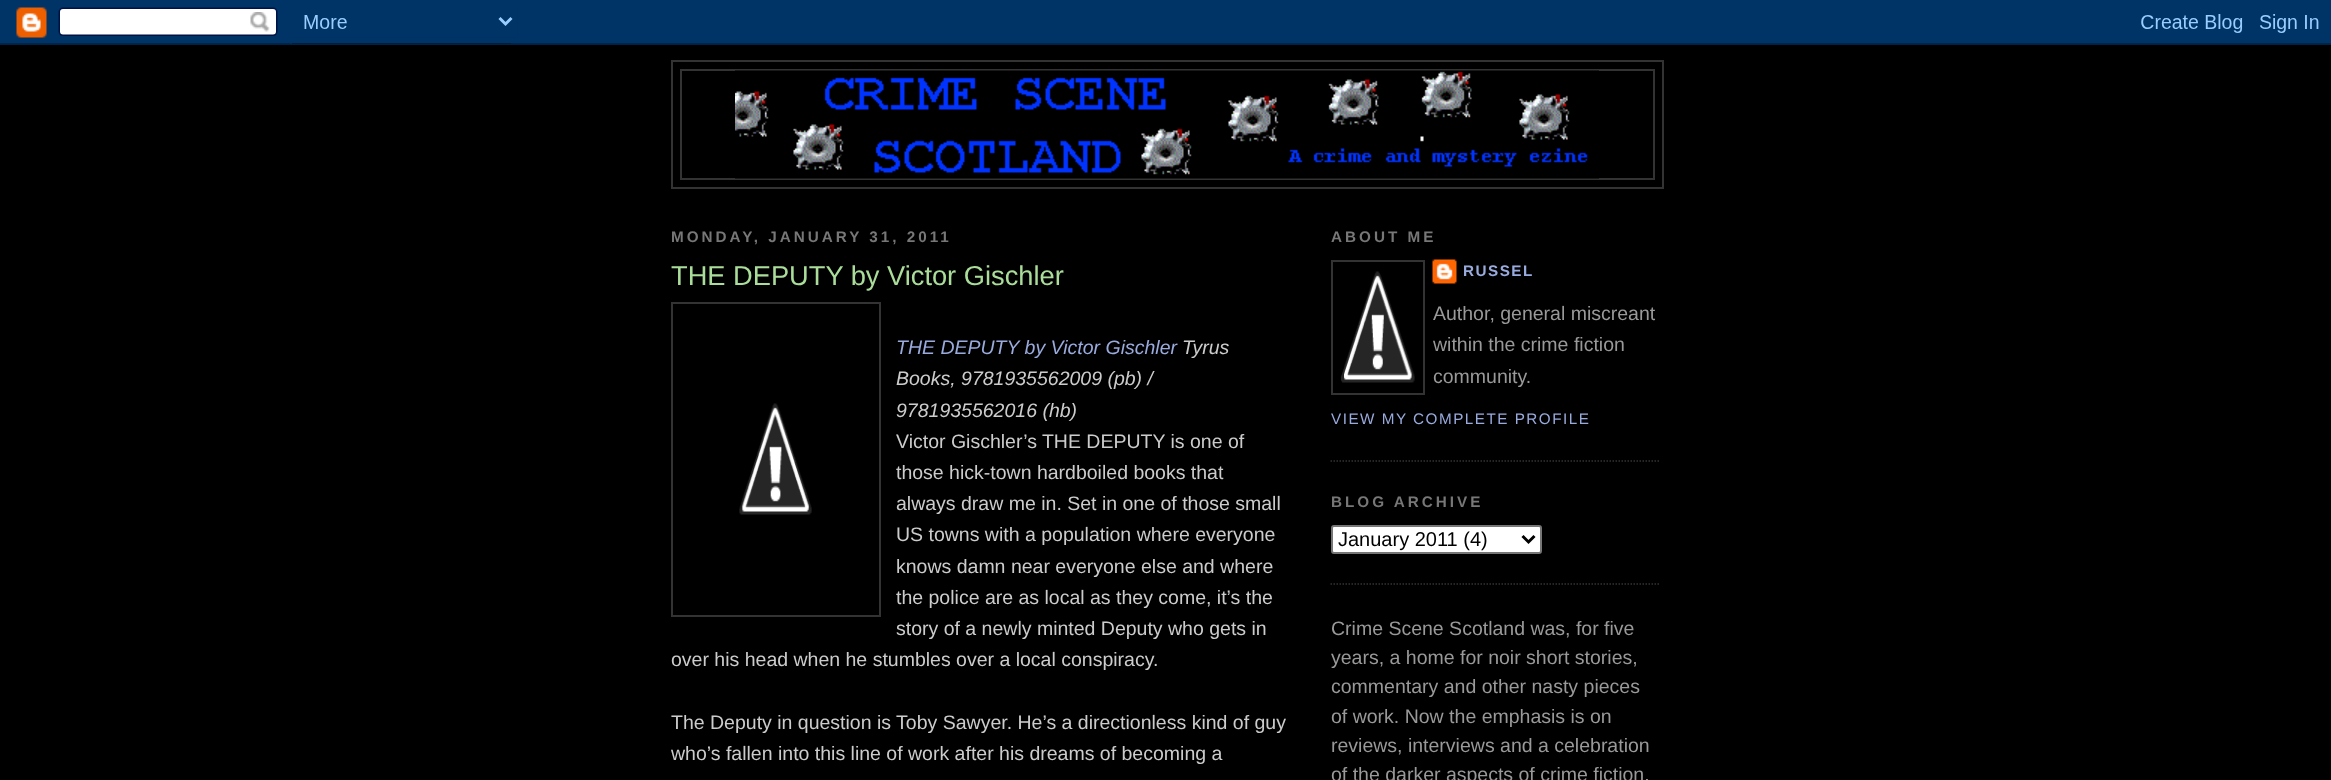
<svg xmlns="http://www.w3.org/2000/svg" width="2331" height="780">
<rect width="100%" height="100%" fill="#000"/>
<image x="0" y="0" width="2331" height="45" href="media/1.png"/>
<rect x="672" y="61" width="991" height="127" fill="none" stroke="#333" stroke-width="2"/>
<rect x="681" y="70" width="973" height="109" fill="none" stroke="#333" stroke-width="2"/>
<image x="735" y="70" width="864" height="109" href="media/2.png"/>
<text x="671" y="242" style="font-family:Liberation Sans;font-size:15.25px;font-weight:bold;letter-spacing:3px;fill:#777">MONDAY, JANUARY 31, 2011</text>
<text x="671" y="285" style="font-family:Liberation Sans;font-size:27.25px;fill:#ad9">THE DEPUTY by Victor Gischler</text>
<rect x="672" y="303" width="208" height="313" fill="none" stroke="#333" stroke-width="2"/>
<image x="739" y="403" width="73" height="112" href="media/3.png"/>
<text x="896" y="354" style="font-family:Liberation Sans;font-size:19.5px;font-style:italic;fill:#9ad">THE DEPUTY by Victor Gischler</text>
<text x="1182" y="354" style="font-family:Liberation Sans;font-size:19.5px;font-style:italic;fill:#ccc">Tyrus</text>
<text x="896" y="385" style="font-family:Liberation Sans;font-size:19.5px;font-style:italic;fill:#ccc">Books, 9781935562009 (pb) /</text>
<text x="896" y="417" style="font-family:Liberation Sans;font-size:19.5px;font-style:italic;fill:#ccc">9781935562016 (hb)</text>
<text x="896" y="448" style="font-family:Liberation Sans;font-size:19.5px;fill:#ccc">Victor Gischler’s THE DEPUTY is one of</text>
<text x="896" y="479" style="font-family:Liberation Sans;font-size:19.5px;fill:#ccc">those hick-town hardboiled books that</text>
<text x="896" y="510" style="font-family:Liberation Sans;font-size:19.5px;fill:#ccc">always draw me in. Set in one of those small</text>
<text x="896" y="541" style="font-family:Liberation Sans;font-size:19.5px;fill:#ccc">US towns with a population where everyone</text>
<text x="896" y="573" style="font-family:Liberation Sans;font-size:19.5px;fill:#ccc">knows damn near everyone else and where</text>
<text x="896" y="604" style="font-family:Liberation Sans;font-size:19.5px;fill:#ccc">the police are as local as they come, it’s the</text>
<text x="896" y="635" style="font-family:Liberation Sans;font-size:19.5px;fill:#ccc">story of a newly minted Deputy who gets in</text>
<text x="671" y="666" style="font-family:Liberation Sans;font-size:19.5px;fill:#ccc">over his head when he stumbles over a local conspiracy.</text>
<text x="671" y="729" style="font-family:Liberation Sans;font-size:19.5px;fill:#ccc">The Deputy in question is Toby Sawyer. He’s a directionless kind of guy</text>
<text x="671" y="760" style="font-family:Liberation Sans;font-size:19.5px;fill:#ccc">who’s fallen into this line of work after his dreams of becoming a</text>
<path d="M1330.5 461h330" fill="none" stroke="#333" stroke-width="1.5" stroke-dasharray="1.5 1.5"/>
<text x="1331" y="242" style="font-family:Liberation Sans;font-size:15.25px;font-weight:bold;letter-spacing:3px;fill:#777">ABOUT ME</text>
<rect x="1332" y="261" width="92" height="133" fill="none" stroke="#333" stroke-width="2"/>
<image x="1341" y="271" width="74" height="112" href="media/4.png"/>
<image x="1432" y="259" width="25" height="25" href="media/5.png"/>
<text x="1463" y="276" style="font-family:Liberation Sans;font-size:15.25px;font-weight:bold;letter-spacing:1.5px;fill:#9ad">RUSSEL</text>
<text x="1433" y="320" style="font-family:Liberation Sans;font-size:19.5px;fill:#999">Author, general miscreant</text>
<text x="1433" y="351" style="font-family:Liberation Sans;font-size:19.5px;fill:#999">within the crime fiction</text>
<text x="1433" y="383" style="font-family:Liberation Sans;font-size:19.5px;fill:#999">community.</text>
<text x="1331" y="424" style="font-family:Liberation Sans;font-size:15.25px;letter-spacing:1.5px;fill:#9ad">VIEW MY COMPLETE PROFILE</text>
<path d="M1330.5 584h330" fill="none" stroke="#333" stroke-width="1.5" stroke-dasharray="1.5 1.5"/>
<text x="1331" y="507" style="font-family:Liberation Sans;font-size:15.25px;font-weight:bold;letter-spacing:3px;fill:#777">BLOG ARCHIVE</text>
<rect x="1332" y="526" width="209" height="27" rx="2" fill="#fff" stroke="#767676" stroke-width="2"/>
<path d="M1522.5 536l6 6l6-6" fill="none" stroke="#000" stroke-width="3"/>
<text x="1338" y="546" style="font-family:Liberation Sans;font-size:20px;fill:#000">January 2011 (4)</text>
<text x="1331" y="635" style="font-family:Liberation Sans;font-size:19.5px;fill:#999">Crime Scene Scotland was, for five</text>
<text x="1331" y="664" style="font-family:Liberation Sans;font-size:19.5px;fill:#999">years, a home for noir short stories,</text>
<text x="1331" y="693" style="font-family:Liberation Sans;font-size:19.5px;fill:#999">commentary and other nasty pieces</text>
<text x="1331" y="723" style="font-family:Liberation Sans;font-size:19.5px;fill:#999">of work. Now the emphasis is on</text>
<text x="1331" y="752" style="font-family:Liberation Sans;font-size:19.5px;fill:#999">reviews, interviews and a celebration</text>
<text x="1331" y="781" style="font-family:Liberation Sans;font-size:19.5px;fill:#999">of the darker aspects of crime fiction.</text>
</svg>
